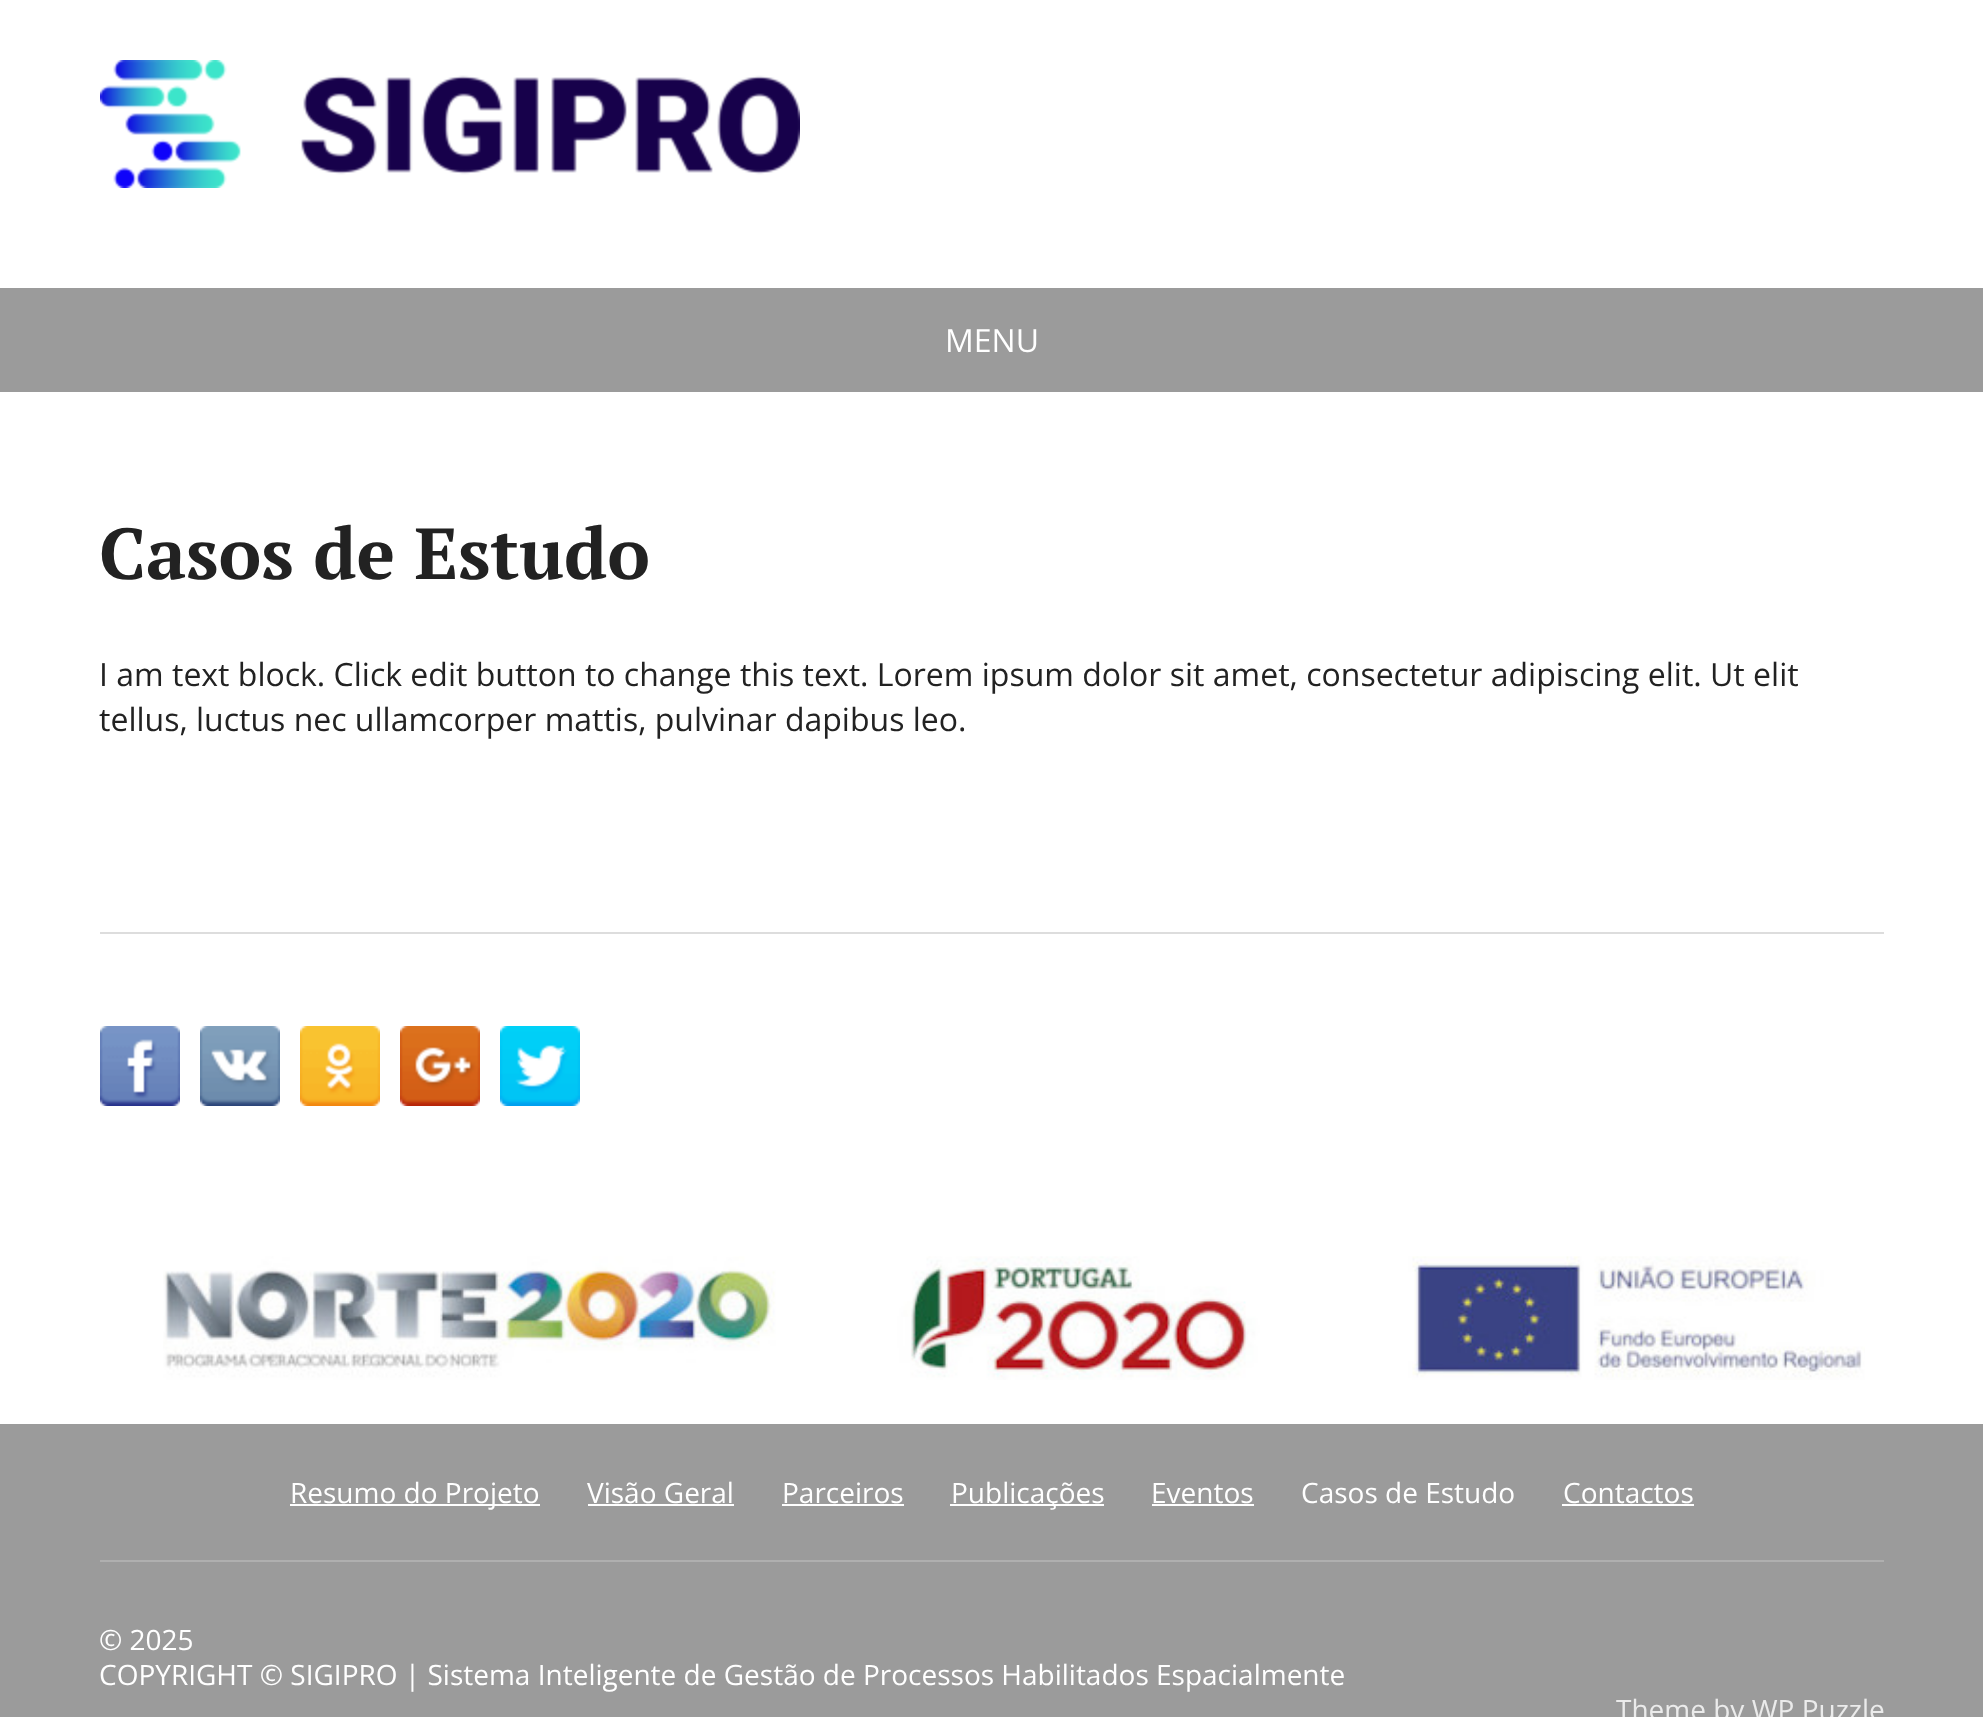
<svg xmlns="http://www.w3.org/2000/svg" width="1983" height="1717">
<rect width="100%" height="100%" fill="#fff"/>
<image x="100" y="60" width="700" height="128" href="media/1.png"/>
<rect y="288" width="1983" height="104" fill="#9b9b9b"/>
<text x="945" y="352" style="font-family:Open Sans;font-size:32px;fill:#fff">MENU</text>
<text x="99" y="579" style="font-family:PT Serif;font-size:72px;font-weight:bold;fill:#222">Casos de Estudo</text>
<text x="99" y="686" style="font-family:Open Sans;font-size:32px;fill:#222">I am text block. Click edit button to change this text. Lorem ipsum dolor sit amet, consectetur adipiscing elit. Ut elit</text>
<text x="99" y="731" style="font-family:Open Sans;font-size:32px;fill:#222">tellus, luctus nec ullamcorper mattis, pulvinar dapibus leo.</text>
<rect x="100" y="932" width="1784" height="2" fill="#ddd"/>
<image x="100" y="1026" width="80" height="80" href="media/2.png"/>
<image x="200" y="1026" width="80" height="80" href="media/3.png"/>
<image x="300" y="1026" width="80" height="80" href="media/4.png"/>
<image x="400" y="1026" width="80" height="80" href="media/5.png"/>
<image x="500" y="1026" width="80" height="80" href="media/6.png"/>
<image x="163" y="1256" width="1702" height="124" href="media/7.png"/>
<rect y="1424" width="1983" height="293" fill="#9b9b9b"/>
<rect x="100" y="1560" width="1784" height="2" fill="#afafaf"/>
<rect x="290" y="1504" width="250" height="2" fill="#fff"/>
<text x="290" y="1503" style="font-family:Open Sans;font-size:28px;fill:#fff">Resumo do Projeto</text>
<text x="587" y="1503" style="font-family:Open Sans;font-size:28px;fill:#fff">Visão Geral</text>
<rect x="588" y="1504" width="146" height="2" fill="#fff"/>
<text x="782" y="1503" style="font-family:Open Sans;font-size:28px;fill:#fff">Parceiros</text>
<rect x="782" y="1504" width="122" height="2" fill="#fff"/>
<rect x="950" y="1504" width="154" height="2" fill="#fff"/>
<text x="951" y="1503" style="font-family:Open Sans;font-size:28px;fill:#fff">Publicações</text>
<text x="1151" y="1503" style="font-family:Open Sans;font-size:28px;fill:#fff">Eventos</text>
<rect x="1152" y="1504" width="102" height="2" fill="#fff"/>
<text x="1301" y="1503" style="font-family:Open Sans;font-size:28px;fill:#fff">Casos de Estudo</text>
<text x="1563" y="1503" style="font-family:Open Sans;font-size:28px;fill:#fff">Contactos</text>
<rect x="1562" y="1504" width="132" height="2" fill="#fff"/>
<text x="99" y="1650" style="font-family:Open Sans;font-size:28px;fill:#fff">© 2025</text>
<text x="99" y="1685" style="font-family:Open Sans;font-size:28px;fill:#fff">COPYRIGHT © SIGIPRO | Sistema Inteligente de Gestão de Processos Habilitados Espacialmente</text>
<text x="1616" y="1720" style="font-family:Open Sans;font-size:28px;fill:#ebebeb">Theme by WP Puzzle</text>
</svg>
